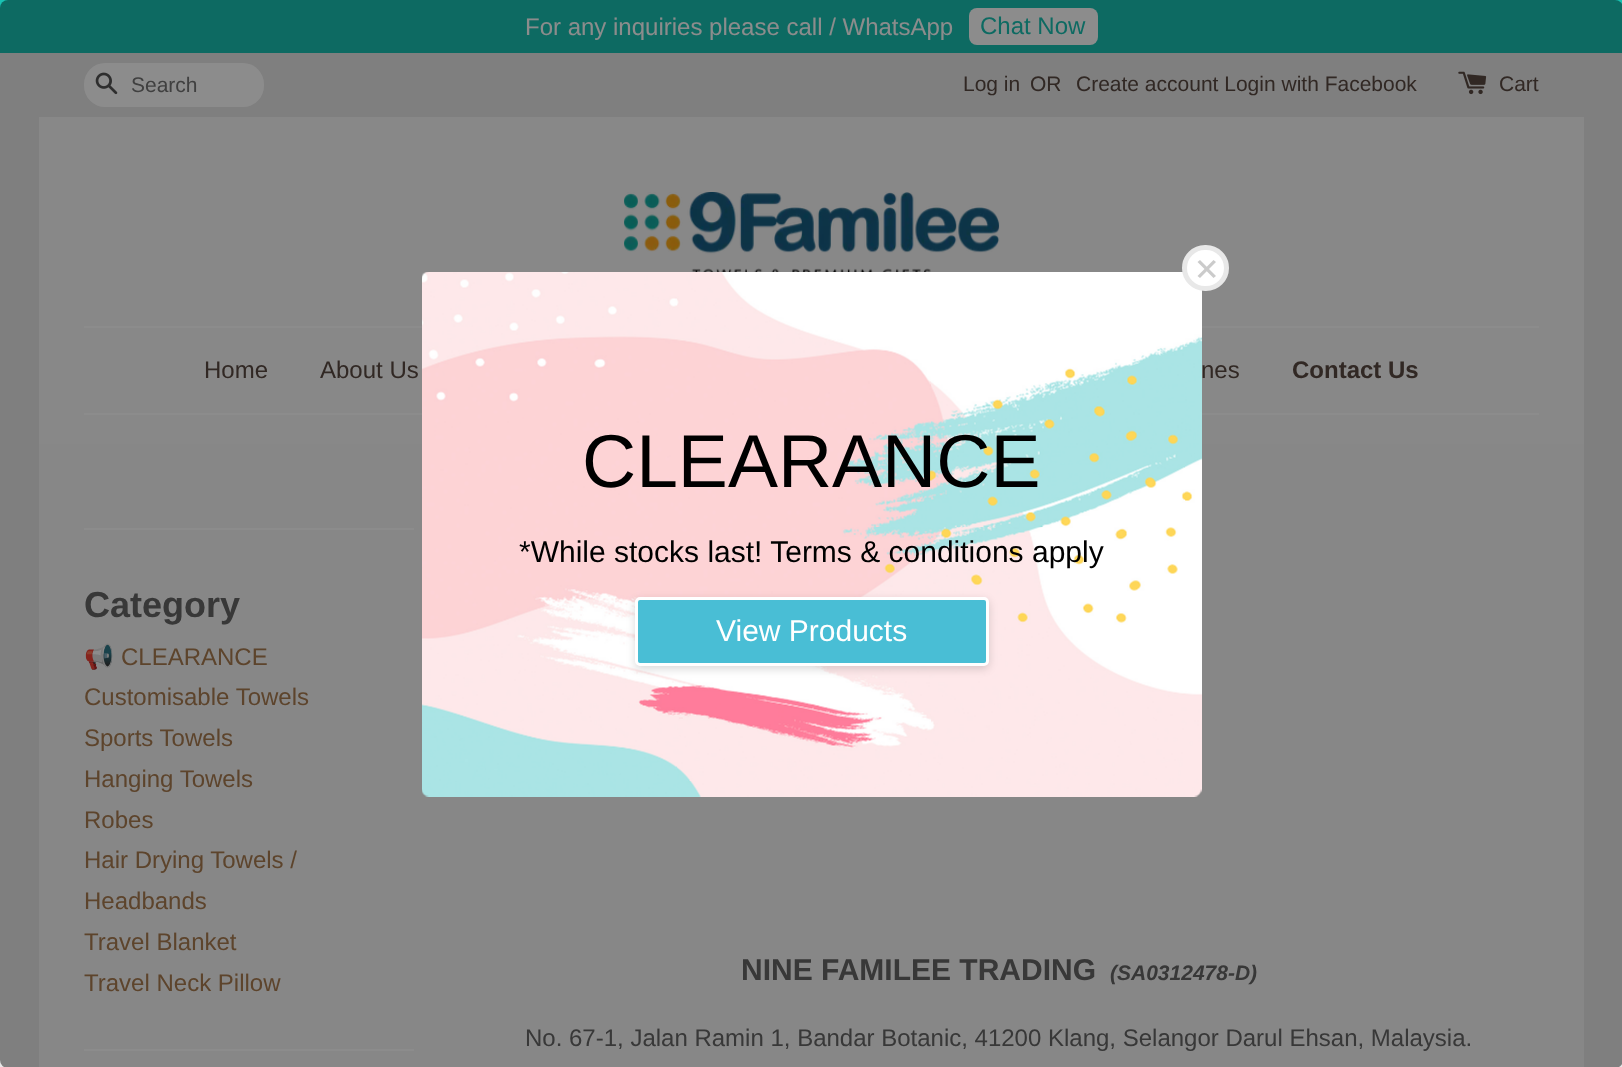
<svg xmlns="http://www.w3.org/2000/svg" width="1622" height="1067">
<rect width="100%" height="100%" fill="#e7e7e7"/>
<rect width="1622" height="53" fill="#19c2b3"/>
<text x="525" y="35" style="font-family:Liberation Sans;font-size:24px;fill:#fff">For any inquiries please call / WhatsApp</text>
<rect x="969" y="8" width="129" height="37" rx="8" fill="#fff"/>
<text x="980" y="34" style="font-family:Liberation Sans;font-size:24px;fill:#19c2b3">Chat Now</text>
<rect x="84" y="63" width="180" height="44" rx="21" fill="#fff"/>
<image x="95" y="72" width="23" height="23" href="media/1.png"/>
<text x="131" y="92" style="font-family:Liberation Sans;font-size:21px;fill:#757575">Search</text>
<text x="963" y="91" style="font-family:Liberation Sans;font-size:21px;fill:#5a4a42">Log in</text>
<text x="1030" y="91" style="font-family:Liberation Sans;font-size:21px;fill:#5a4a42">OR</text>
<text x="1076" y="91" style="font-family:Liberation Sans;font-size:21px;fill:#5a4a42">Create account Login with Facebook</text>
<image x="1458" y="71" width="29" height="24" href="media/2.png"/>
<text x="1499" y="91" style="font-family:Liberation Sans;font-size:21px;fill:#5a4a42">Cart</text>
<rect x="39" y="117" width="1545" height="327" fill="#f7f7f7"/>
<image x="624" y="192" width="376" height="80" href="media/3.png"/>
<rect x="84" y="326" width="1455" height="2" fill="#fff"/>
<rect x="84" y="413" width="1455" height="2" fill="#fff"/>
<text x="204" y="378" style="font-family:Liberation Sans;font-size:24px;fill:#5a4a42">Home</text>
<text x="320" y="378" style="font-family:Liberation Sans;font-size:24px;fill:#5a4a42">About Us</text>
<text x="1201" y="378" style="font-family:Liberation Sans;font-size:24px;fill:#5a4a42">nes</text>
<text x="1292" y="378" style="font-family:Liberation Sans;font-size:24px;font-weight:bold;fill:#5a4a42">Contact Us</text>
<rect x="39" y="444" width="1545" height="623" fill="#f6f6f6"/>
<rect x="84" y="528" width="330" height="2" fill="#fff"/>
<text x="84" y="617" style="font-family:Liberation Sans;font-size:36px;font-weight:bold;fill:#666">Category</text>
<text x="84" y="665" style="font-family:Noto Color Emoji;font-size:24px;fill:#a97c50">📢</text>
<text x="121" y="665" style="font-family:Liberation Sans;font-size:24px;fill:#a97c50">CLEARANCE</text>
<text x="84" y="705" style="font-family:Liberation Sans;font-size:24px;fill:#a97c50">Customisable Towels</text>
<text x="84" y="746" style="font-family:Liberation Sans;font-size:24px;fill:#a97c50">Sports Towels</text>
<text x="84" y="787" style="font-family:Liberation Sans;font-size:24px;fill:#a97c50">Hanging Towels</text>
<text x="84" y="828" style="font-family:Liberation Sans;font-size:24px;fill:#a97c50">Robes</text>
<text x="84" y="868" style="font-family:Liberation Sans;font-size:24px;fill:#a97c50">Hair Drying Towels /</text>
<text x="84" y="909" style="font-family:Liberation Sans;font-size:24px;fill:#a97c50">Headbands</text>
<text x="84" y="950" style="font-family:Liberation Sans;font-size:24px;fill:#a97c50">Travel Blanket</text>
<text x="84" y="991" style="font-family:Liberation Sans;font-size:24px;fill:#a97c50">Travel Neck Pillow</text>
<rect x="84" y="1049" width="330" height="2" fill="#fff"/>
<text x="741" y="980" style="font-family:Liberation Sans;font-size:30px;font-weight:bold;fill:#666">NINE FAMILEE TRADING</text>
<text x="1110" y="980" style="font-family:Liberation Sans;font-size:21px;font-weight:bold;font-style:italic;fill:#666">(SA0312478-D)</text>
<text x="525" y="1046" style="font-family:Liberation Sans;font-size:24px;fill:#666">No. 67-1, Jalan Ramin 1, Bandar Botanic, 41200 Klang, Selangor Darul Ehsan, Malaysia.</text>
<rect width="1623" height="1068" rx="8" fill="#00000073"/>
<image x="422" y="272" width="780" height="525" href="media/4.png"/>
<rect x="1184.5" y="247.5" width="42" height="41" rx="20.5" fill="#fff" stroke="#e8e8e8" stroke-width="5"/>
<path d="M1213.5 260l2.5 2l-16 16l-2.5-2z" fill="#cbcbcb"/>
<path d="M1197.5 262l2.5-2l16 16l-2.5 2z" fill="#cbcbcb"/>
<text x="582" y="487" style="font-family:Liberation Sans;font-size:75px;fill:#000">CLEARANCE</text>
<text x="519" y="562" style="font-family:Liberation Sans;font-size:30px;fill:#000">*While stocks last! Terms &amp; conditions apply</text>
<rect x="635" y="600" width="354" height="69" rx="5" fill="#00000026" filter="blur(4px)"/>
<rect x="636.5" y="598.5" width="351" height="66" rx="3.5" fill="#49bed5" stroke="#fff" stroke-width="3"/>
<text x="716" y="641" style="font-family:Liberation Sans;font-size:30px;fill:#fff">View Products</text>
</svg>
